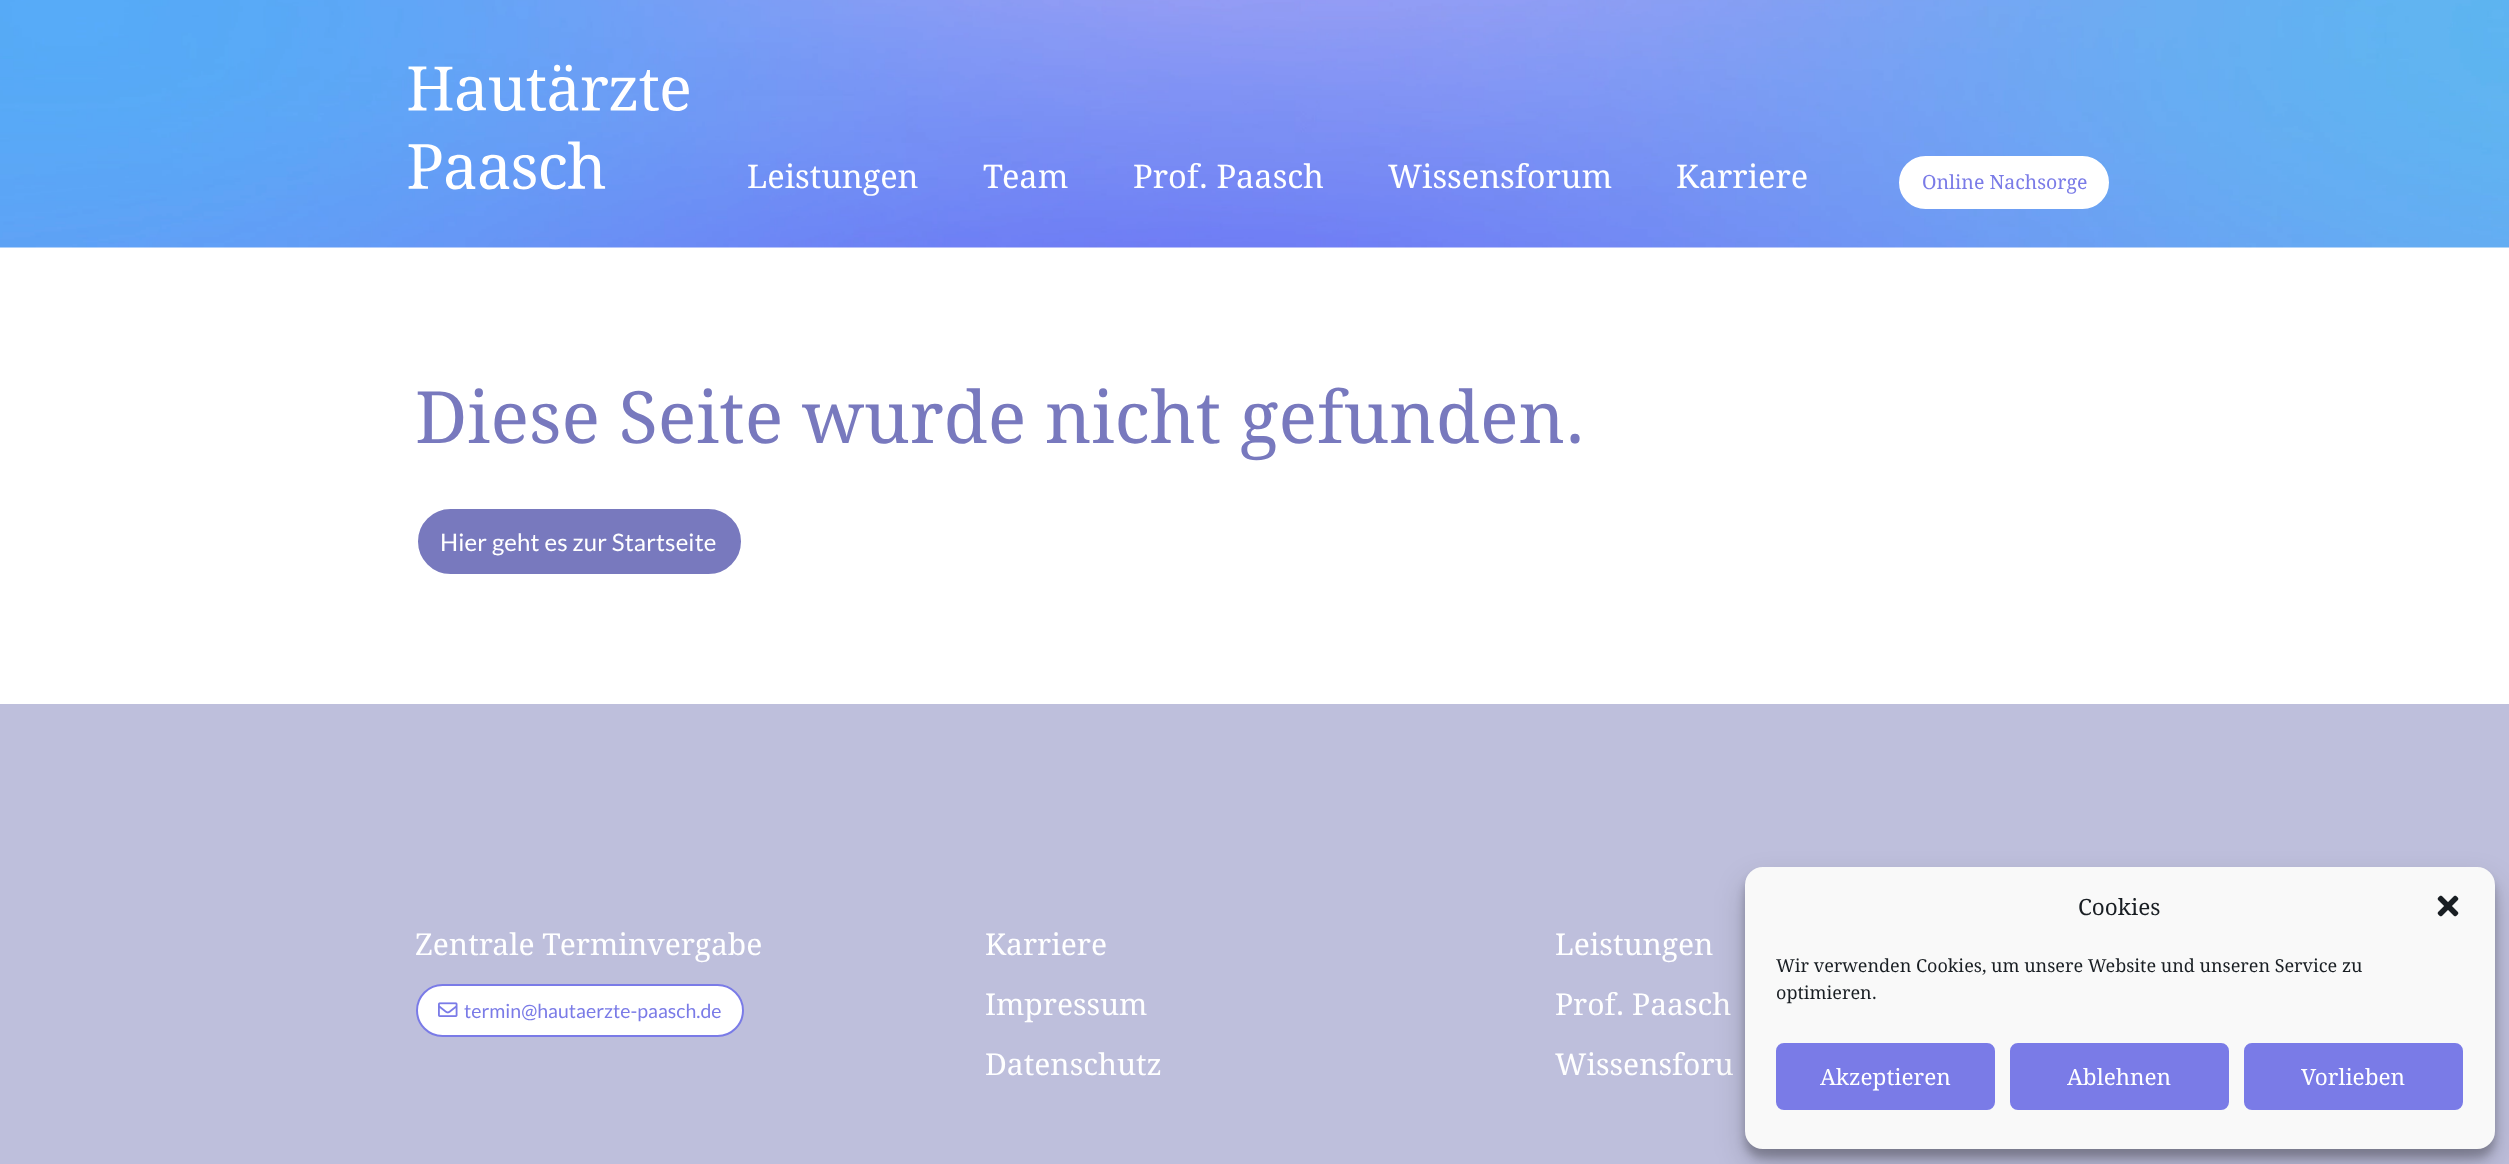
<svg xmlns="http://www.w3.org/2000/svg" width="2509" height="1164">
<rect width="100%" height="100%" fill="#fff"/>
<image x="0" y="0" width="2509" height="248" href="media/1.png"/>
<image x="408" y="64" width="281" height="126" href="media/2.png"/>
<text x="747" y="188" style="font-family:Droid Serif;font-size:32.5px;fill:#fff">Leistungen</text>
<text x="983" y="188" style="font-family:Droid Serif;font-size:32.5px;fill:#fff">Team</text>
<text x="1133" y="188" style="font-family:Droid Serif;font-size:32.5px;fill:#fff">Prof. Paasch</text>
<text x="1388" y="188" style="font-family:Droid Serif;font-size:32.5px;fill:#fff">Wissensforum</text>
<text x="1676" y="188" style="font-family:Droid Serif;font-size:32.5px;fill:#fff">Karriere</text>
<rect x="1900" y="157" width="208" height="51" rx="25.5" fill="#fff" stroke="#fff" stroke-width="2"/>
<text x="1922" y="189" style="font-family:Droid Serif;font-size:19.5px;fill:#7a7be7">Online Nachsorge</text>
<text x="415" y="443" style="font-family:Droid Serif;font-size:72px;fill:#7879be">Diese Seite wurde nicht gefunden.</text>
<rect x="417" y="508" width="325" height="67" rx="33.5" fill="#7879be" stroke="#fff" stroke-width="2"/>
<text x="440" y="551" style="font-family:Lato;font-size:24px;letter-spacing:0.15px;fill:#fff">Hier geht es zur Startseite</text>
<rect y="704" width="2509" height="460" fill="#bebfdc"/>
<text x="415" y="955" style="font-family:Droid Serif;font-size:30px;fill:#fff">Zentrale Terminvergabe</text>
<rect x="417" y="985" width="326" height="51" rx="25.5" fill="#fff" stroke="#7a7be7" stroke-width="2"/>
<image x="438" y="1002" width="20" height="15" href="media/3.png"/>
<text x="464" y="1018" style="font-family:Lato;font-size:19.5px;fill:#7a7be7">termin@hautaerzte-paasch.de</text>
<text x="985" y="955" style="font-family:Droid Serif;font-size:30px;fill:#fff">Karriere</text>
<text x="985" y="1015" style="font-family:Droid Serif;font-size:30px;fill:#fff">Impressum</text>
<text x="985" y="1075" style="font-family:Droid Serif;font-size:30px;fill:#fff">Datenschutz</text>
<text x="1555" y="955" style="font-family:Droid Serif;font-size:30px;fill:#fff">Leistungen</text>
<text x="1555" y="1015" style="font-family:Droid Serif;font-size:30px;fill:#fff">Prof. Paasch</text>
<text x="1555" y="1075" style="font-family:Droid Serif;font-size:30px;fill:#fff">Wissensforu</text>
<rect x="1745" y="876" width="750" height="282" rx="18" fill="#0000003b" filter="blur(4.5px)"/>
<rect x="1745" y="882" width="750" height="282" rx="18" fill="#00000030" filter="blur(15px)"/>
<rect x="1746" y="868" width="748" height="280" rx="17" fill="#f9f9f9" stroke="#f9f9f9" stroke-width="2"/>
<text x="2078" y="915" style="font-family:Droid Serif;font-size:22.5px;fill:#191e23">Cookies</text>
<image x="2437" y="895" width="22" height="22" href="media/4.png"/>
<text x="1776" y="972" style="font-family:Droid Serif;font-size:18px;fill:#191e23">Wir verwenden Cookies, um unsere Website und unseren Service zu</text>
<text x="1776" y="999" style="font-family:Droid Serif;font-size:18px;fill:#191e23">optimieren.</text>
<rect x="1777" y="1044" width="217" height="65" rx="7" fill="#7a7be7" stroke="#7a7be7" stroke-width="2"/>
<text x="1820" y="1085" style="font-family:Droid Serif;font-size:22.5px;fill:#fff">Akzeptieren</text>
<rect x="2011" y="1044" width="217" height="65" rx="7" fill="#7a7be7" stroke="#7a7be7" stroke-width="2"/>
<text x="2067" y="1085" style="font-family:Droid Serif;font-size:22.5px;fill:#fff">Ablehnen</text>
<rect x="2245" y="1044" width="217" height="65" rx="7" fill="#7a7be7" stroke="#7a7be7" stroke-width="2"/>
<text x="2301" y="1085" style="font-family:Droid Serif;font-size:22.5px;fill:#fff">Vorlieben</text>
</svg>
